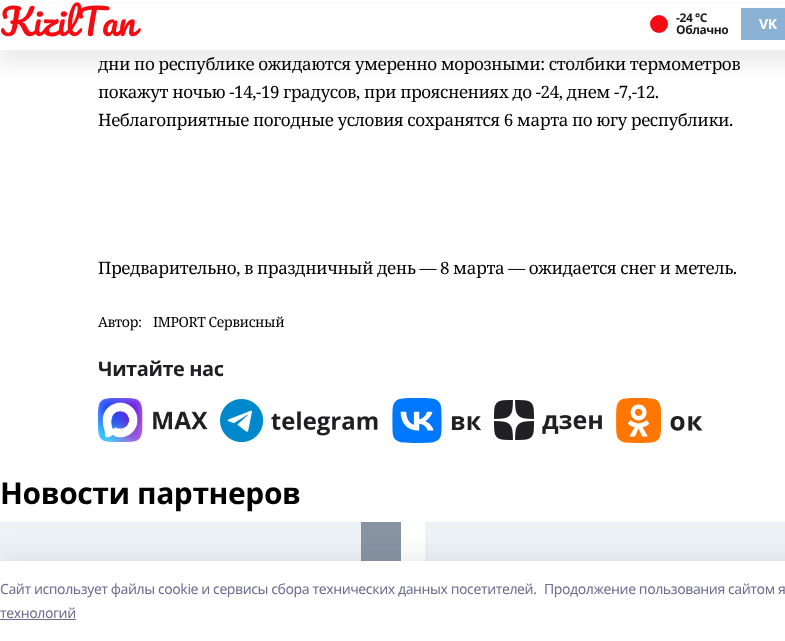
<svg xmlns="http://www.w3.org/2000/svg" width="785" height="641">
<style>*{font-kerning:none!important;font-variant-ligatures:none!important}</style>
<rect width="100%" height="100%" fill="#fff"/>
<rect y="15" width="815" height="50" fill="#00000014" filter="blur(10px)"/>
<rect y="4" width="785" height="46" fill="#fff"/>
<text x="0" y="36" style="font-family:Pacifico;font-size:36px;letter-spacing:-0.42px;fill:#f50b12">KizilTan</text>
<circle cx="659" cy="24" r="9" fill="#f50b12"/>
<text x="676" y="22" style="font-family:Noto Sans;font-size:12px;font-weight:bold;letter-spacing:-0.42px;fill:#1a1a1a">-24 °С</text>
<text x="676" y="34" style="font-family:Noto Sans;font-size:12px;font-weight:bold;letter-spacing:-0.42px;fill:#1a1a1a">Облачно</text>
<rect x="741" y="8" width="44" height="32" fill="#8bb1d4"/>
<text x="759" y="29" style="font-family:Noto Sans;font-size:14px;font-weight:bold;letter-spacing:-0.42px;fill:#fff">VK</text>
<text x="98" y="70" style="font-family:Noto Serif;font-size:17px;letter-spacing:-0.42px;fill:#000">дни по республике ожидаются умеренно морозными: столбики термометров</text>
<text x="98" y="98" style="font-family:Noto Serif;font-size:17px;letter-spacing:-0.42px;fill:#000">покажут ночью -14,-19 градусов, при прояснениях до -24, днем -7,-12.</text>
<text x="98" y="126" style="font-family:Noto Serif;font-size:17px;letter-spacing:-0.42px;fill:#000">Неблагоприятные погодные условия сохранятся 6 марта по югу республики.</text>
<text x="98" y="274" style="font-family:Noto Serif;font-size:17px;letter-spacing:-0.42px;fill:#000">Предварительно, в праздничный день — 8 марта — ожидается снег и метель.</text>
<text x="98" y="327" style="font-family:Noto Serif;font-size:14px;letter-spacing:-0.42px;fill:#000">Автор:</text>
<text x="153" y="327" style="font-family:Noto Serif;font-size:14px;letter-spacing:-0.42px;fill:#000">IMPORT Сервисный</text>
<text x="98" y="376" style="font-family:Noto Sans;font-size:20px;font-weight:bold;letter-spacing:-0.42px;fill:#202022">Читайте нас</text>
<image x="98" y="398" width="110" height="44" href="media/1.png"/>
<image x="220" y="399" width="158" height="43" href="media/2.png"/>
<image x="392" y="398" width="89" height="45" href="media/3.png"/>
<image x="494" y="400" width="108" height="40" href="media/4.png"/>
<image x="616" y="398" width="87" height="45" href="media/5.png"/>
<text x="0" y="504" style="font-family:Noto Sans;font-size:30px;font-weight:bold;letter-spacing:-0.42px;fill:#000">Новости партнеров</text>
<rect x="361" y="522" width="40" height="39" fill="#8894a2"/>
<rect y="522" width="361" height="39" fill="#edf2f7"/>
<rect x="425" y="522" width="360" height="39" fill="#edf2f7"/>
<rect y="555" width="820" height="80" fill="#14142b14" filter="blur(11.5px)"/>
<rect y="561" width="785" height="80" fill="#fff"/>
<text x="0" y="594" style="font-family:Noto Sans;font-size:14px;letter-spacing:-0.42px;fill:#6f6c90">Cайт использует файлы cookie и сервисы сбора технических данных посетителей.</text>
<text x="544" y="594" style="font-family:Noto Sans;font-size:14px;letter-spacing:-0.42px;fill:#6f6c90">Продолжение пользования сайтом я</text>
<text x="0" y="618" style="font-family:Noto Sans;font-size:14px;letter-spacing:-0.42px;fill:#6f6c90">технологий</text>
<rect y="619" width="76" height="1" fill="#6f6c90"/>
</svg>
